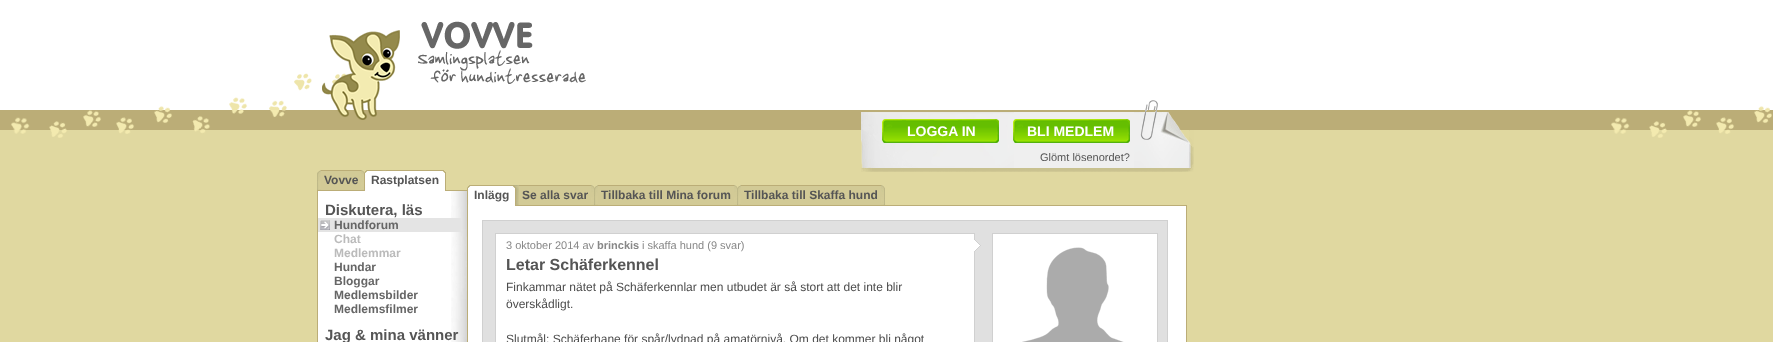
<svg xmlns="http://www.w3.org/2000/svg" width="1773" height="342">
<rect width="100%" height="100%" fill="#e0d8a0"/>
<image x="0" y="0" width="1773" height="138" href="media/1.png"/>
<image x="322" y="30" width="78" height="90" href="media/2.png"/>
<image x="418" y="21" width="168" height="63" href="media/3.png"/>
<image x="861" y="100" width="333" height="72" href="media/4.png"/>
<image x="882" y="119" width="117" height="24" href="media/5.png"/>
<text x="907" y="136" style="font-family:Liberation Sans;font-size:14px;font-weight:bold;fill:#fff">LOGGA IN</text>
<image x="1013" y="119" width="117" height="24" href="media/6.png"/>
<text x="1027" y="136" style="font-family:Liberation Sans;font-size:14px;font-weight:bold;fill:#fff">BLI MEDLEM</text>
<text x="1040" y="161" style="font-family:Liberation Sans;font-size:11px;fill:#555">Glömt lösenordet?</text>
<rect x="317" y="190" width="150" height="1" fill="#bbad77"/>
<image x="317" y="170" width="4" height="20" href="media/7.png"/>
<rect x="321" y="171" width="40" height="19" fill="#d2ca96"/>
<rect x="321" y="170" width="40" height="1" fill="#bbad77"/>
<text x="324" y="184" style="font-family:Liberation Sans;font-size:12px;font-weight:bold;fill:#555">Vovve</text>
<image x="361" y="170" width="7" height="21" href="media/8.png"/>
<rect x="368" y="171" width="74" height="20" fill="#fff"/>
<rect x="368" y="170" width="74" height="1" fill="#bbad77"/>
<text x="371" y="184" style="font-family:Liberation Sans;font-size:12px;font-weight:bold;fill:#555">Rastplatsen</text>
<image x="442" y="170" width="4" height="21" href="media/9.png"/>
<rect x="318" y="191" width="133" height="151" fill="#fff"/>
<image x="451" y="191" width="16" height="151" href="media/10.png"/>
<rect x="317" y="191" width="1" height="151" fill="#bbad77"/>
<text x="325" y="215" style="font-family:Liberation Sans;font-size:15px;font-weight:bold;fill:#555">Diskutera, läs</text>
<rect x="318" y="218" width="143" height="14" fill="#e4e4e4"/>
<image x="320" y="220" width="10" height="10" href="media/11.png"/>
<text x="334" y="229" style="font-family:Liberation Sans;font-size:12px;font-weight:bold;fill:#666">Hundforum</text>
<text x="334" y="243" style="font-family:Liberation Sans;font-size:12px;font-weight:bold;fill:#bbb">Chat</text>
<text x="334" y="257" style="font-family:Liberation Sans;font-size:12px;font-weight:bold;fill:#bbb">Medlemmar</text>
<text x="334" y="271" style="font-family:Liberation Sans;font-size:12px;font-weight:bold;fill:#666">Hundar</text>
<text x="334" y="285" style="font-family:Liberation Sans;font-size:12px;font-weight:bold;fill:#666">Bloggar</text>
<text x="334" y="299" style="font-family:Liberation Sans;font-size:12px;font-weight:bold;fill:#666">Medlemsbilder</text>
<text x="334" y="313" style="font-family:Liberation Sans;font-size:12px;font-weight:bold;fill:#666">Medlemsfilmer</text>
<text x="325" y="340" style="font-family:Liberation Sans;font-size:15px;font-weight:bold;fill:#555">Jag &amp; mina vänner</text>
<rect x="519" y="205" width="668" height="1" fill="#bbad77"/>
<image x="467" y="185" width="4" height="21" href="media/12.png"/>
<rect x="471" y="186" width="41" height="20" fill="#fff"/>
<rect x="471" y="185" width="41" height="1" fill="#bbad77"/>
<text x="474" y="199" style="font-family:Liberation Sans;font-size:12px;font-weight:bold;fill:#555">Inlägg</text>
<image x="512" y="185" width="7" height="21" href="media/13.png"/>
<rect x="519" y="186" width="72" height="19" fill="#d2ca96"/>
<rect x="519" y="185" width="72" height="1" fill="#bbad77"/>
<text x="522" y="199" style="font-family:Liberation Sans;font-size:12px;font-weight:bold;fill:#555">Se alla svar</text>
<image x="591" y="185" width="7" height="20" href="media/14.png"/>
<rect x="598" y="186" width="136" height="19" fill="#d2ca96"/>
<rect x="598" y="185" width="136" height="1" fill="#bbad77"/>
<text x="601" y="199" style="font-family:Liberation Sans;font-size:12px;font-weight:bold;fill:#555">Tillbaka till Mina forum</text>
<image x="734" y="185" width="7" height="20" href="media/14.png"/>
<rect x="741" y="186" width="140" height="19" fill="#d2ca96"/>
<rect x="741" y="185" width="140" height="1" fill="#bbad77"/>
<text x="744" y="199" style="font-family:Liberation Sans;font-size:12px;font-weight:bold;fill:#555">Tillbaka till Skaffa hund</text>
<image x="881" y="185" width="4" height="20" href="media/15.png"/>
<rect x="468" y="206" width="718" height="136" fill="#fff"/>
<rect x="1186" y="206" width="1" height="136" fill="#bbad77"/>
<rect x="467" y="206" width="1" height="136" fill="#bbad77"/>
<rect x="482.5" y="220.5" width="685" height="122" fill="#e0e0e0" stroke="#d0d0d0"/>
<image x="974" y="233" width="7" height="109" href="media/16.png"/>
<rect x="496" y="234" width="478" height="108" fill="#fff"/>
<rect x="495" y="233" width="479" height="1" fill="#d0d0d0"/>
<rect x="495" y="233" width="1" height="109" fill="#d0d0d0"/>
<text x="506" y="249" style="font-family:Liberation Sans;font-size:11px;fill:#888">3 oktober 2014 av</text>
<text x="597" y="249" style="font-family:Liberation Sans;font-size:11px;font-weight:bold;fill:#888">brinckis</text>
<text x="642" y="249" style="font-family:Liberation Sans;font-size:11px;fill:#888">i skaffa hund (9 svar)</text>
<text x="506" y="270" style="font-family:Liberation Sans;font-size:16px;font-weight:bold;fill:#555">Letar Schäferkennel</text>
<text x="506" y="291" style="font-family:Liberation Sans;font-size:12px;fill:#4c4c4c">Finkammar nätet på Schäferkennlar men utbudet är så stort att det inte blir</text>
<text x="506" y="308" style="font-family:Liberation Sans;font-size:12px;fill:#4c4c4c">överskådligt.</text>
<text x="506" y="343" style="font-family:Liberation Sans;font-size:12px;fill:#4c4c4c">Slutmål: Schäferhane för spår/lydnad på amatörnivå. Om det kommer bli något</text>
<rect x="992.5" y="233.5" width="165" height="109" fill="#fff" stroke="#d0d0d0"/>
<image x="1022" y="247" width="102" height="95" href="media/17.png"/>
</svg>
